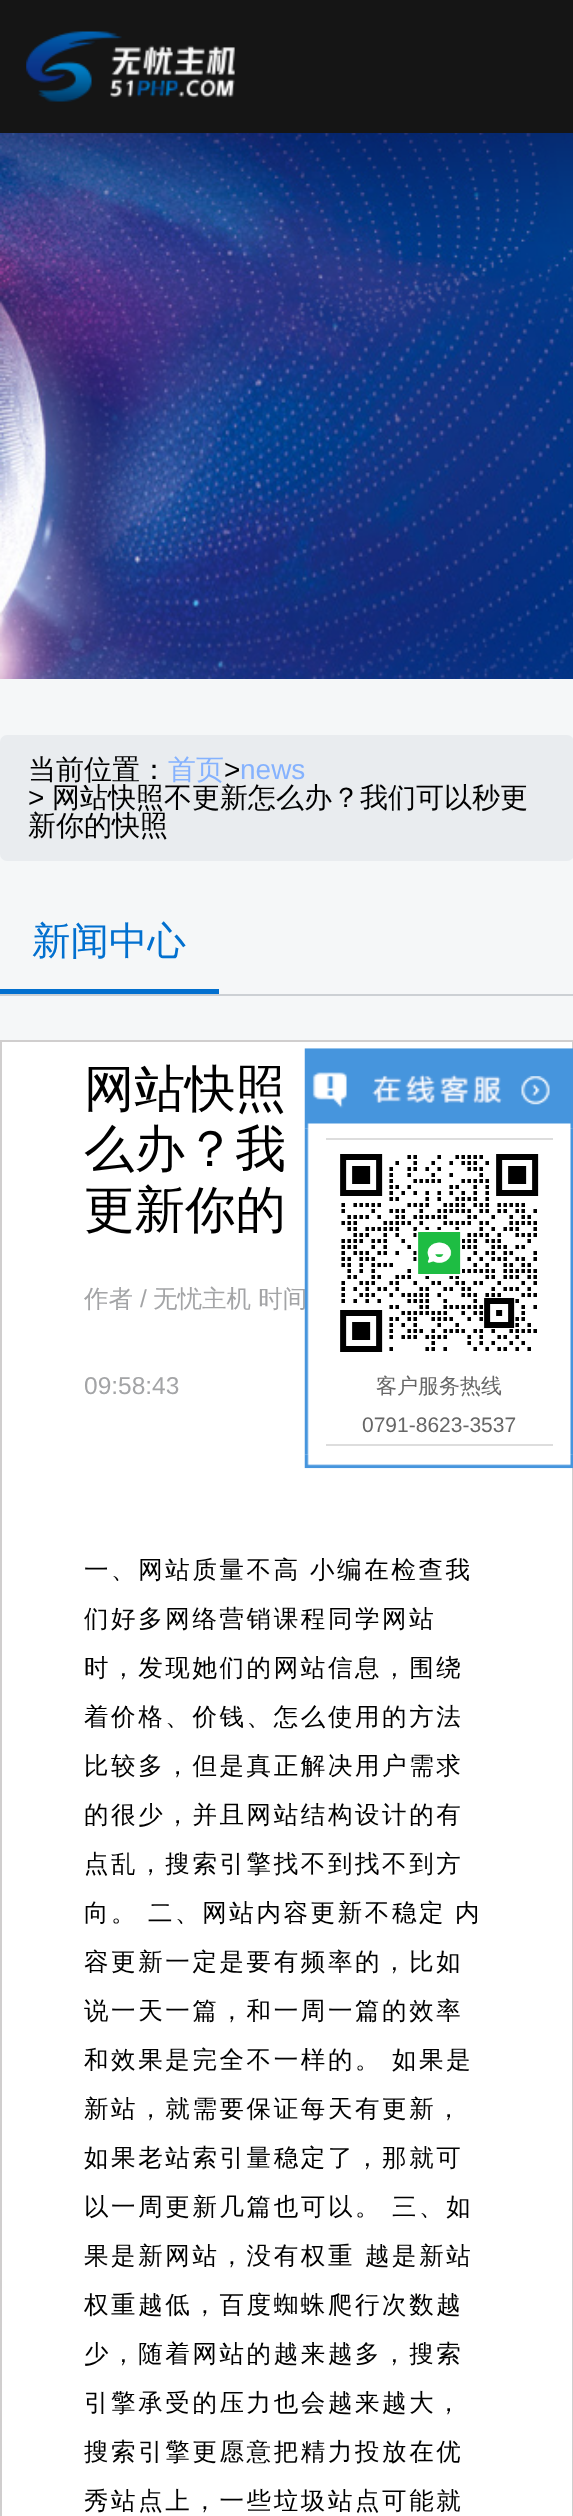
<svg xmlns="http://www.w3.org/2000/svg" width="573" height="2516">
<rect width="100%" height="100%" fill="#f5f7f8"/>
<rect width="573" height="133" fill="#151515"/>
<image x="26" y="31" width="209" height="71" href="media/1.png"/>
<image x="0" y="133" width="573" height="546" href="media/2.png"/>
<rect y="735" width="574" height="126" rx="7" fill="#e9ecef"/>
<text x="28" y="779" style="font-family:WenQuanYi Zen Hei;font-size:28px;font-weight:500;fill:#000">当前位置：</text>
<text x="168" y="779" style="font-family:WenQuanYi Zen Hei;font-size:28px;font-weight:500;fill:#85b2fe">首页</text>
<text x="224" y="779" style="font-family:Liberation Sans;font-size:28px;fill:#000">&gt;</text>
<text x="240" y="779" style="font-family:Liberation Sans;font-size:28px;fill:#85b2fe">news</text>
<text x="28" y="807" style="font-family:Liberation Sans;font-size:28px;fill:#000">&gt;</text>
<text x="52" y="807" style="font-family:WenQuanYi Zen Hei;font-size:28px;font-weight:500;fill:#000">网站快照不更新怎么办？我们可以秒更</text>
<text x="28" y="835" style="font-family:WenQuanYi Zen Hei;font-size:28px;font-weight:500;fill:#000">新你的快照</text>
<rect y="994" width="573" height="2" fill="#ccd0d4"/>
<text x="32" y="954" style="font-family:WenQuanYi Zen Hei;font-size:38.5px;font-weight:500;fill:#0270cf">新闻中心</text>
<rect y="989" width="219" height="5" fill="#0270cf"/>
<rect x="1" y="1041" width="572" height="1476" fill="#fff" stroke="#d0cece" stroke-width="2"/>
<text x="84" y="1106" style="font-family:WenQuanYi Zen Hei;font-size:50.5px;font-weight:500;fill:#000">网站快照</text>
<text x="84" y="1166" style="font-family:WenQuanYi Zen Hei;font-size:50.5px;font-weight:500;fill:#000">么办？我</text>
<text x="84" y="1227" style="font-family:WenQuanYi Zen Hei;font-size:50.5px;font-weight:500;fill:#000">更新你的</text>
<text x="84" y="1307" style="font-family:WenQuanYi Zen Hei;font-size:24.5px;font-weight:500;fill:#a3a4a6">作者</text>
<text x="140" y="1307" style="font-family:Liberation Sans;font-size:24.5px;fill:#a3a4a6">/</text>
<text x="153" y="1307" style="font-family:WenQuanYi Zen Hei;font-size:24.5px;font-weight:500;fill:#a3a4a6">无忧主机 时间</text>
<text x="84" y="1394" style="font-family:Liberation Sans;font-size:24.5px;fill:#a3a4a6">09:58:43</text>
<text x="84" y="1578" style="font-family:WenQuanYi Zen Hei;font-size:24.5px;font-weight:500;letter-spacing:2.6px;fill:#000">一、网站质量不高</text>
<text x="310" y="1578" style="font-family:WenQuanYi Zen Hei;font-size:24.5px;font-weight:500;letter-spacing:2.6px;fill:#000">小编在检查我</text>
<text x="84" y="1627" style="font-family:WenQuanYi Zen Hei;font-size:24.5px;font-weight:500;letter-spacing:2.6px;fill:#000">们好多网络营销课程同学网站</text>
<text x="84" y="1676" style="font-family:WenQuanYi Zen Hei;font-size:24.5px;font-weight:500;letter-spacing:2.6px;fill:#000">时，发现她们的网站信息，围绕</text>
<text x="84" y="1725" style="font-family:WenQuanYi Zen Hei;font-size:24.5px;font-weight:500;letter-spacing:2.6px;fill:#000">着价格、价钱、怎么使用的方法</text>
<text x="84" y="1774" style="font-family:WenQuanYi Zen Hei;font-size:24.5px;font-weight:500;letter-spacing:2.6px;fill:#000">比较多，但是真正解决用户需求</text>
<text x="84" y="1823" style="font-family:WenQuanYi Zen Hei;font-size:24.5px;font-weight:500;letter-spacing:2.6px;fill:#000">的很少，并且网站结构设计的有</text>
<text x="84" y="1872" style="font-family:WenQuanYi Zen Hei;font-size:24.5px;font-weight:500;letter-spacing:2.6px;fill:#000">点乱，搜索引擎找不到找不到方</text>
<text x="84" y="1921" style="font-family:WenQuanYi Zen Hei;font-size:24.5px;font-weight:500;letter-spacing:2.6px;fill:#000">向。</text>
<text x="148" y="1921" style="font-family:WenQuanYi Zen Hei;font-size:24.5px;font-weight:500;letter-spacing:2.6px;fill:#000">二、网站内容更新不稳定</text>
<text x="455" y="1921" style="font-family:WenQuanYi Zen Hei;font-size:24.5px;font-weight:500;letter-spacing:2.6px;fill:#000">内</text>
<text x="84" y="1970" style="font-family:WenQuanYi Zen Hei;font-size:24.5px;font-weight:500;letter-spacing:2.6px;fill:#000">容更新一定是要有频率的，比如</text>
<text x="84" y="2019" style="font-family:WenQuanYi Zen Hei;font-size:24.5px;font-weight:500;letter-spacing:2.6px;fill:#000">说一天一篇，和一周一篇的效率</text>
<text x="84" y="2068" style="font-family:WenQuanYi Zen Hei;font-size:24.5px;font-weight:500;letter-spacing:2.6px;fill:#000">和效果是完全不一样的。</text>
<text x="392" y="2068" style="font-family:WenQuanYi Zen Hei;font-size:24.5px;font-weight:500;letter-spacing:2.6px;fill:#000">如果是</text>
<text x="84" y="2117" style="font-family:WenQuanYi Zen Hei;font-size:24.5px;font-weight:500;letter-spacing:2.6px;fill:#000">新站，就需要保证每天有更新，</text>
<text x="84" y="2166" style="font-family:WenQuanYi Zen Hei;font-size:24.5px;font-weight:500;letter-spacing:2.6px;fill:#000">如果老站索引量稳定了，那就可</text>
<text x="84" y="2215" style="font-family:WenQuanYi Zen Hei;font-size:24.5px;font-weight:500;letter-spacing:2.6px;fill:#000">以一周更新几篇也可以。</text>
<text x="392" y="2215" style="font-family:WenQuanYi Zen Hei;font-size:24.5px;font-weight:500;letter-spacing:2.6px;fill:#000">三、如</text>
<text x="84" y="2264" style="font-family:WenQuanYi Zen Hei;font-size:24.5px;font-weight:500;letter-spacing:2.6px;fill:#000">果是新网站，没有权重</text>
<text x="365" y="2264" style="font-family:WenQuanYi Zen Hei;font-size:24.5px;font-weight:500;letter-spacing:2.6px;fill:#000">越是新站</text>
<text x="84" y="2313" style="font-family:WenQuanYi Zen Hei;font-size:24.5px;font-weight:500;letter-spacing:2.6px;fill:#000">权重越低，百度蜘蛛爬行次数越</text>
<text x="84" y="2362" style="font-family:WenQuanYi Zen Hei;font-size:24.5px;font-weight:500;letter-spacing:2.6px;fill:#000">少，随着网站的越来越多，搜索</text>
<text x="84" y="2411" style="font-family:WenQuanYi Zen Hei;font-size:24.5px;font-weight:500;letter-spacing:2.6px;fill:#000">引擎承受的压力也会越来越大，</text>
<text x="84" y="2460" style="font-family:WenQuanYi Zen Hei;font-size:24.5px;font-weight:500;letter-spacing:2.6px;fill:#000">搜索引擎更愿意把精力投放在优</text>
<text x="84" y="2509" style="font-family:WenQuanYi Zen Hei;font-size:24.5px;font-weight:500;letter-spacing:2.6px;fill:#000">秀站点上，一些垃圾站点可能就</text>
<image x="304" y="1048" width="269" height="81" href="media/3.png"/>
<image x="521" y="1076" width="29" height="29" href="media/4.png"/>
<image x="304" y="1128" width="269" height="327" href="media/5.png"/>
<rect x="326" y="1138" width="227" height="2" fill="#ddd"/>
<rect x="326" y="1444" width="227" height="2" fill="#ddd"/>
<image x="340" y="1154" width="199" height="198" href="media/6.png"/>
<text x="376" y="1393" style="font-family:WenQuanYi Zen Hei;font-size:21px;font-weight:500;fill:#666">客户服务热线</text>
<text x="362" y="1432" style="font-family:Liberation Sans;font-size:21px;fill:#666">0791-8623-3537</text>
<image x="304" y="1454" width="269" height="15" href="media/7.png"/>
</svg>
